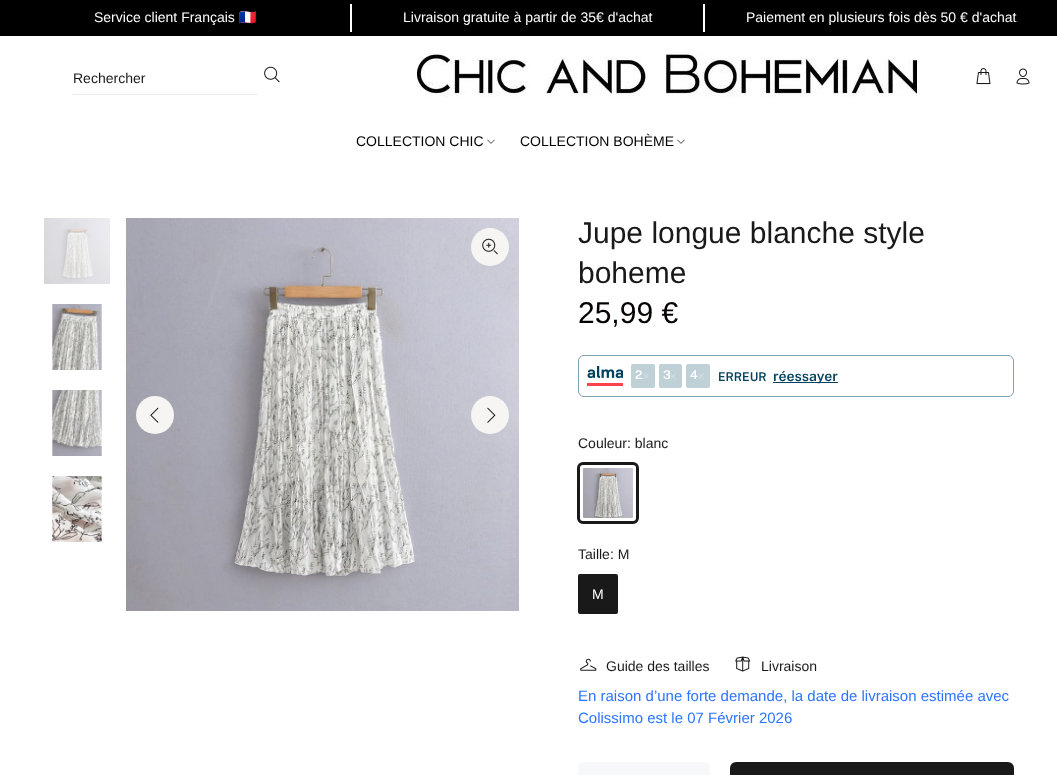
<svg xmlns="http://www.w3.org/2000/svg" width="1057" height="775">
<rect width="100%" height="100%" fill="#fff"/>
<rect width="1057" height="36" fill="#000"/>
<rect x="350" y="4" width="2" height="28" fill="#fff"/>
<text x="94" y="22" style="font-family:Liberation Sans;font-size:14px;fill:#fff">Service client Français</text>
<text x="239" y="22" style="font-family:Noto Color Emoji;font-size:14px;fill:#fff">🇫🇷</text>
<rect x="703" y="4" width="2" height="28" fill="#fff"/>
<text x="403" y="22" style="font-family:Liberation Sans;font-size:14px;fill:#fff">Livraison gratuite à partir de 35€ d'achat</text>
<text x="746" y="22" style="font-family:Liberation Sans;font-size:14px;fill:#fff">Paiement en plusieurs fois dès 50 € d'achat</text>
<rect x="73" y="94" width="185" height="1" fill="#eceaea"/>
<text x="73" y="83" style="font-family:Liberation Sans;font-size:14px;fill:#191919">Rechercher</text>
<image x="264" y="66" width="16" height="17" href="media/1.png"/>
<image x="417" y="49" width="500" height="48" href="media/2.png"/>
<image x="976" y="68" width="15" height="17" href="media/3.png"/>
<image x="1016" y="68" width="14" height="17" href="media/4.png"/>
<text x="356" y="146" style="font-family:Liberation Sans;font-size:14px;fill:#000">COLLECTION CHIC</text>
<image x="487" y="139" width="8" height="5" href="media/5.png"/>
<text x="520" y="146" style="font-family:Liberation Sans;font-size:14px;fill:#000">COLLECTION BOHÈME</text>
<image x="677" y="139" width="8" height="5" href="media/5.png"/>
<image x="44" y="218" width="66" height="66" href="media/6.png"/>
<image x="52" y="304" width="50" height="66" href="media/7.png"/>
<image x="52" y="390" width="50" height="66" href="media/8.png"/>
<image x="52" y="476" width="51" height="66" href="media/9.png"/>
<image x="126" y="218" width="393" height="393" href="media/10.png"/>
<circle cx="490" cy="247" r="19" fill="#f6f5f3"/>
<image x="482" y="238" width="16" height="17" href="media/11.png"/>
<circle cx="155" cy="415" r="19" fill="#f6f5f3"/>
<image x="150" y="407" width="9" height="16" href="media/12.png"/>
<circle cx="490" cy="415" r="19" fill="#f6f5f3"/>
<image x="487" y="407" width="9" height="16" href="media/13.png"/>
<text x="578" y="243" style="font-family:Liberation Sans;font-size:30px;fill:#191919">Jupe longue blanche style</text>
<text x="578" y="283" style="font-family:Liberation Sans;font-size:30px;fill:#191919">boheme</text>
<text x="578" y="323" style="font-family:Liberation Sans;font-size:30px;fill:#060000">25,99 €</text>
<rect x="578.5" y="355.5" width="435" height="41" rx="5.5" fill="none" stroke="#80a1af"/>
<image x="587" y="366" width="36" height="20" href="media/14.png"/>
<rect x="631" y="364" width="24" height="24" rx="2" fill="#bfd0d7"/>
<text x="635" y="379" style="font-family:Public Sans;font-size:12px;font-weight:600;fill:#fff">2</text>
<image x="643" y="373" width="6" height="6" href="media/15.png"/>
<rect x="659" y="364" width="23" height="24" rx="2" fill="#bfd0d7"/>
<text x="663" y="379" style="font-family:Public Sans;font-size:12px;font-weight:600;fill:#fff">3</text>
<image x="670" y="373" width="6" height="6" href="media/15.png"/>
<rect x="686" y="364" width="24" height="24" rx="2" fill="#bfd0d7"/>
<text x="690" y="379" style="font-family:Public Sans;font-size:12px;font-weight:600;fill:#fff">4</text>
<image x="698" y="373" width="6" height="6" href="media/15.png"/>
<text x="718" y="381" style="font-family:Public Sans;font-size:12px;font-weight:600;fill:#00425e">ERREUR</text>
<rect x="773" y="382" width="65" height="1" fill="#00425e"/>
<text x="773" y="381" style="font-family:Public Sans;font-size:14px;font-weight:600;fill:#00425e">réessayer</text>
<text x="578" y="448" style="font-family:Liberation Sans;font-size:14px;fill:#191919">Couleur: blanc</text>
<image x="583" y="468" width="50" height="50" href="media/16.png"/>
<rect x="580.5" y="465.5" width="55" height="55" rx="3.5" fill="none" stroke="#fff" stroke-width="5"/>
<rect x="578.5" y="463.5" width="59" height="59" rx="4.5" fill="none" stroke="#191919" stroke-width="3"/>
<text x="578" y="559" style="font-family:Liberation Sans;font-size:14px;fill:#191919">Taille: M</text>
<rect x="578" y="574" width="40" height="40" rx="2" fill="#191919"/>
<text x="592" y="599" style="font-family:Liberation Sans;font-size:14px;fill:#fff">M</text>
<image x="580" y="658" width="17" height="13" href="media/17.png"/>
<text x="606" y="671" style="font-family:Liberation Sans;font-size:14px;fill:#191919">Guide des tailles</text>
<image x="735" y="656" width="16" height="16" href="media/18.png"/>
<text x="761" y="671" style="font-family:Liberation Sans;font-size:14px;fill:#191919">Livraison</text>
<text x="578" y="701" style="font-family:Liberation Sans;font-size:15px;fill:#2c75ff">En raison d’une forte demande, la date de livraison estimée avec</text>
<text x="578" y="723" style="font-family:Liberation Sans;font-size:15px;fill:#2c75ff">Colissimo est le 07 Février 2026</text>
<rect x="578" y="762" width="132" height="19" rx="6" fill="#f7f8fa"/>
<rect x="730" y="762" width="284" height="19" rx="6" fill="#191919"/>
</svg>
